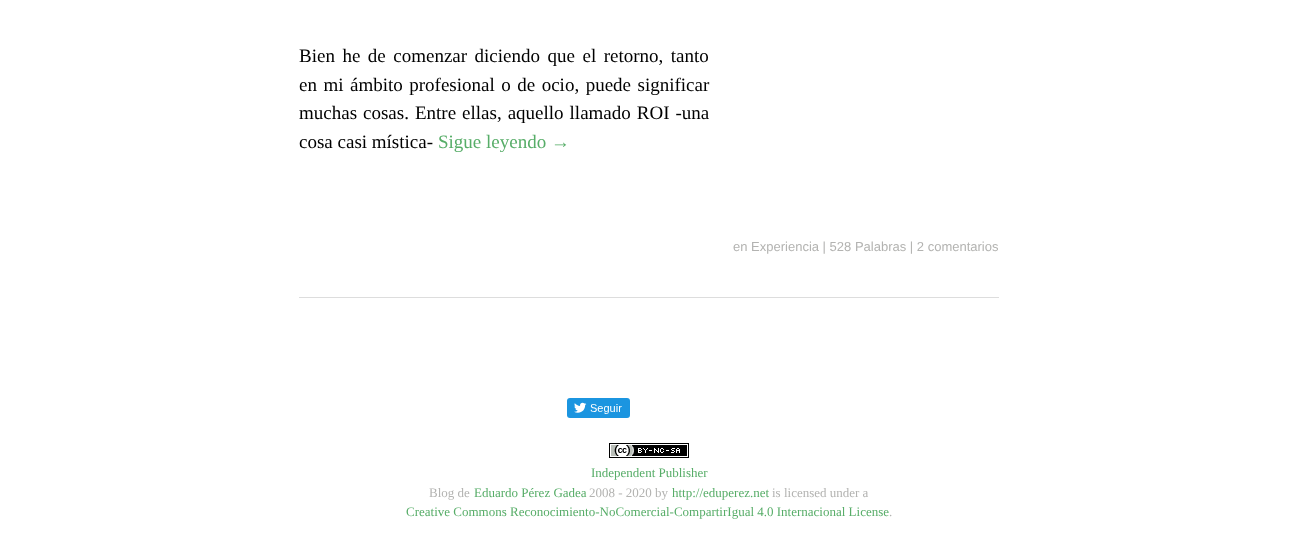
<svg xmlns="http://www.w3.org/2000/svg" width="1298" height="542">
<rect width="100%" height="100%" fill="#fff"/>
<rect x="299" y="297" width="700" height="1" fill="#ddd"/>
<text x="299" y="62" word-spacing="2.75" style="font-family:Liberation Serif;font-size:19px;fill:#000">Bien he de comenzar diciendo que el retorno, tanto</text>
<text x="299" y="91" word-spacing="1.75" style="font-family:Liberation Serif;font-size:19px;fill:#000">en mi ámbito profesional o de ocio, puede significar</text>
<text x="299" y="119" word-spacing="1.25" style="font-family:Liberation Serif;font-size:19px;fill:#000">muchas cosas. Entre ellas, aquello llamado ROI -una</text>
<text x="299" y="148" style="font-family:Liberation Serif;font-size:19px;fill:#000">cosa casi mística-</text>
<text x="438" y="148" style="font-family:Liberation Serif;font-size:19px;fill:#57ad68">Sigue leyendo →</text>
<text x="733" y="251" style="font-family:Liberation Sans;font-size:13px;fill:#b3b3b1">en Experiencia | 528 Palabras | 2 comentarios</text>
<image x="567" y="398" width="63" height="20" href="media/1.png"/>
<image x="609" y="443" width="80" height="15" href="media/2.png"/>
<text x="591" y="477" style="font-family:Liberation Serif;font-size:13px;fill:#57ad68">Independent Publisher</text>
<text x="429" y="497" style="font-family:Liberation Serif;font-size:13px;fill:#b3b3b1">Blog de</text>
<text x="474" y="497" style="font-family:Liberation Serif;font-size:13px;fill:#57ad68">Eduardo Pérez Gadea</text>
<text x="589" y="497" style="font-family:Liberation Serif;font-size:13px;fill:#b3b3b1">2008 - 2020 by</text>
<text x="672" y="497" style="font-family:Liberation Serif;font-size:13px;fill:#57ad68">http://eduperez.net</text>
<text x="772" y="497" style="font-family:Liberation Serif;font-size:13px;fill:#b3b3b1">is licensed under a</text>
<text x="406" y="516" style="font-family:Liberation Serif;font-size:13px;fill:#57ad68">Creative Commons Reconocimiento-NoComercial-CompartirIgual 4.0 Internacional License</text>
<text x="889" y="516" style="font-family:Liberation Serif;font-size:13px;fill:#b3b3b1">.</text>
</svg>
